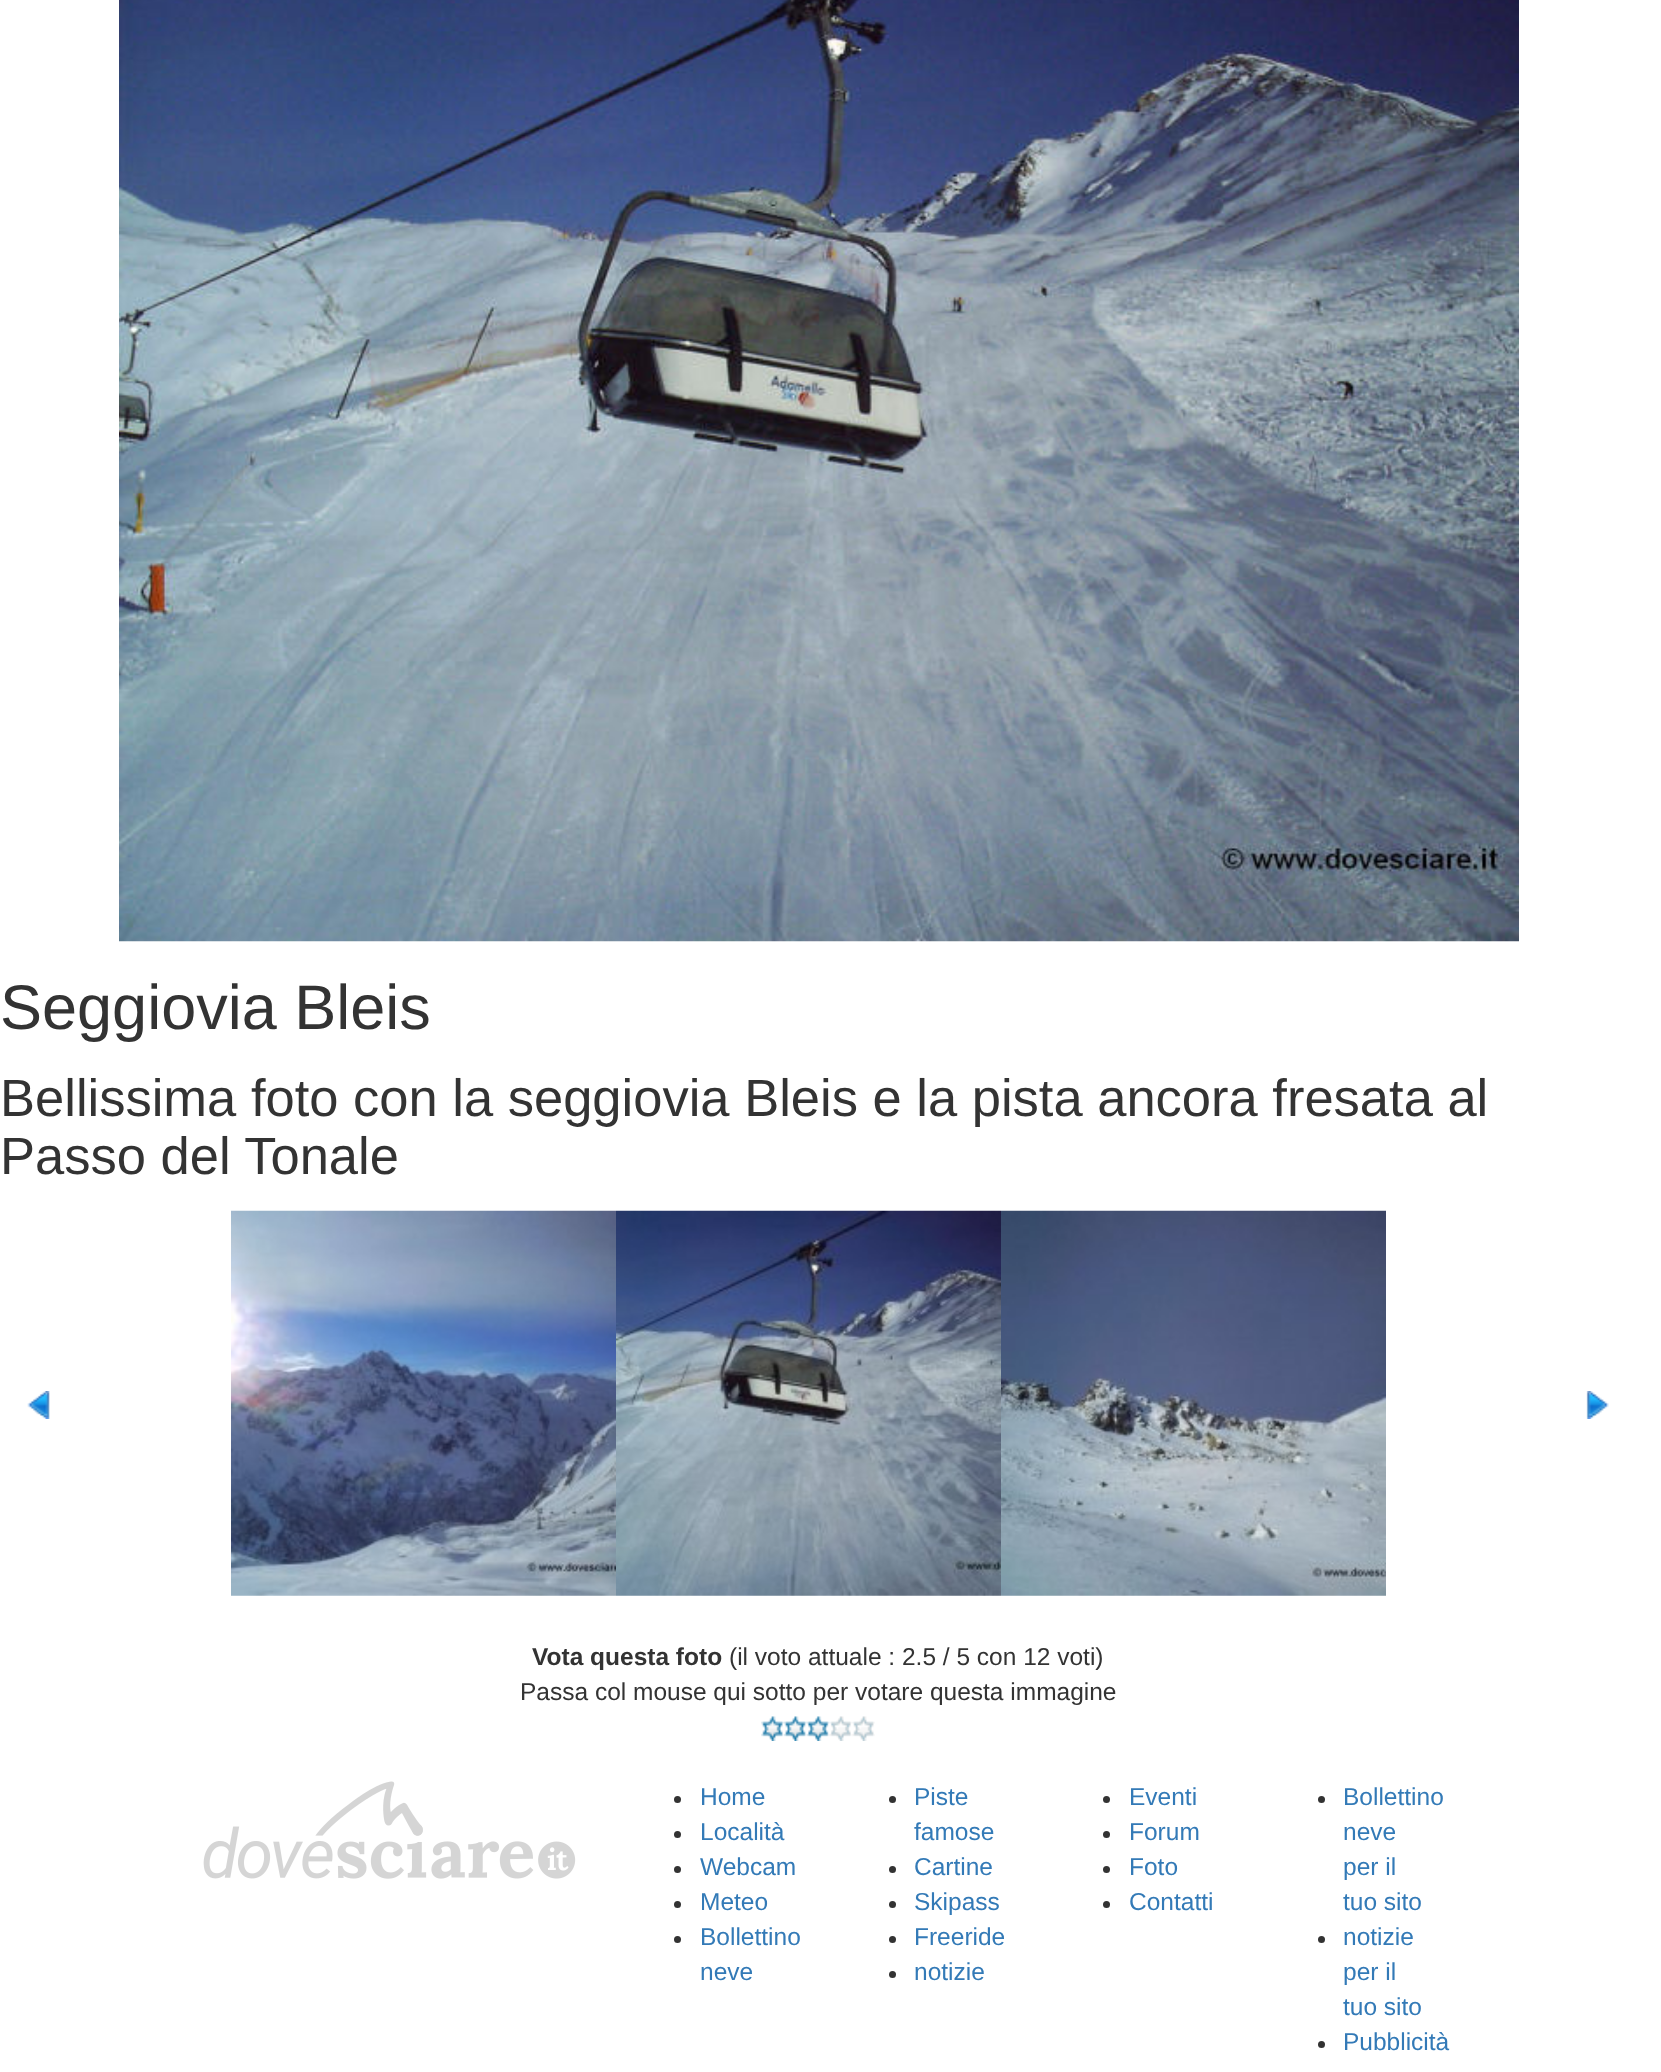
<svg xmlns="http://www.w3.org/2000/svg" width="1661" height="2072">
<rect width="100%" height="100%" fill="#fff"/>
<image x="119" y="0" width="1400" height="942" href="media/1.png"/>
<text x="0" y="1029" style="font-family:Liberation Sans;font-size:63px;fill:#333">Seggiovia Bleis</text>
<text x="0" y="1116" style="font-family:Liberation Sans;font-size:52.5px;fill:#333">Bellissima foto con la seggiovia Bleis e la pista ancora fresata al</text>
<text x="0" y="1174" style="font-family:Liberation Sans;font-size:52.5px;fill:#333">Passo del Tonale</text>
<image x="27" y="1391" width="23" height="28" href="media/2.png"/>
<image x="231" y="1210" width="385" height="386" href="media/3.png"/>
<image x="616" y="1210" width="385" height="386" href="media/4.png"/>
<image x="1001" y="1210" width="385" height="386" href="media/5.png"/>
<image x="1586" y="1391" width="23" height="28" href="media/6.png"/>
<text x="532" y="1665" style="font-family:Liberation Sans;font-size:24.5px;font-weight:bold;fill:#333">Vota questa foto</text>
<text x="729" y="1665" style="font-family:Liberation Sans;font-size:24.5px;fill:#333">(il voto attuale : 2.5 / 5 con 12 voti)</text>
<text x="520" y="1700" style="font-family:Liberation Sans;font-size:24.5px;fill:#333">Passa col mouse qui sotto per votare questa immagine</text>
<image x="761" y="1716" width="23" height="25" href="media/7.png"/>
<image x="784" y="1716" width="23" height="25" href="media/8.png"/>
<image x="806" y="1716" width="24" height="25" href="media/9.png"/>
<image x="829" y="1716" width="23" height="25" href="media/10.png"/>
<image x="852" y="1716" width="23" height="25" href="media/11.png"/>
<image x="203" y="1781" width="373" height="98" href="media/12.png"/>
<circle cx="677.5" cy="1799.5" r="3.5" fill="#333"/>
<text x="700" y="1805" style="font-family:Liberation Sans;font-size:24.5px;fill:#337ab7">Home</text>
<circle cx="677.5" cy="1834.5" r="3.5" fill="#333"/>
<text x="700" y="1840" style="font-family:Liberation Sans;font-size:24.5px;fill:#337ab7">Località</text>
<circle cx="677.5" cy="1869.5" r="3.5" fill="#333"/>
<text x="700" y="1875" style="font-family:Liberation Sans;font-size:24.5px;fill:#337ab7">Webcam</text>
<circle cx="677.5" cy="1904.5" r="3.5" fill="#333"/>
<text x="700" y="1910" style="font-family:Liberation Sans;font-size:24.5px;fill:#337ab7">Meteo</text>
<circle cx="677.5" cy="1939.5" r="3.5" fill="#333"/>
<text x="700" y="1945" style="font-family:Liberation Sans;font-size:24.5px;fill:#337ab7">Bollettino</text>
<text x="700" y="1980" style="font-family:Liberation Sans;font-size:24.5px;fill:#337ab7">neve</text>
<circle cx="892.5" cy="1799.5" r="3.5" fill="#333"/>
<text x="914" y="1805" style="font-family:Liberation Sans;font-size:24.5px;fill:#337ab7">Piste</text>
<text x="914" y="1840" style="font-family:Liberation Sans;font-size:24.5px;fill:#337ab7">famose</text>
<circle cx="892.5" cy="1869.5" r="3.5" fill="#333"/>
<text x="914" y="1875" style="font-family:Liberation Sans;font-size:24.5px;fill:#337ab7">Cartine</text>
<circle cx="892.5" cy="1904.5" r="3.5" fill="#333"/>
<text x="914" y="1910" style="font-family:Liberation Sans;font-size:24.5px;fill:#337ab7">Skipass</text>
<circle cx="892.5" cy="1939.5" r="3.5" fill="#333"/>
<text x="914" y="1945" style="font-family:Liberation Sans;font-size:24.5px;fill:#337ab7">Freeride</text>
<circle cx="892.5" cy="1974.5" r="3.5" fill="#333"/>
<text x="914" y="1980" style="font-family:Liberation Sans;font-size:24.5px;fill:#337ab7">notizie</text>
<circle cx="1106.5" cy="1799.5" r="3.5" fill="#333"/>
<text x="1129" y="1805" style="font-family:Liberation Sans;font-size:24.5px;fill:#337ab7">Eventi</text>
<circle cx="1106.5" cy="1834.5" r="3.5" fill="#333"/>
<text x="1129" y="1840" style="font-family:Liberation Sans;font-size:24.5px;fill:#337ab7">Forum</text>
<circle cx="1106.5" cy="1869.5" r="3.5" fill="#333"/>
<text x="1129" y="1875" style="font-family:Liberation Sans;font-size:24.5px;fill:#337ab7">Foto</text>
<circle cx="1106.5" cy="1904.5" r="3.5" fill="#333"/>
<text x="1129" y="1910" style="font-family:Liberation Sans;font-size:24.5px;fill:#337ab7">Contatti</text>
<circle cx="1321.5" cy="1799.5" r="3.5" fill="#333"/>
<text x="1343" y="1805" style="font-family:Liberation Sans;font-size:24.5px;fill:#337ab7">Bollettino</text>
<text x="1343" y="1840" style="font-family:Liberation Sans;font-size:24.5px;fill:#337ab7">neve</text>
<text x="1343" y="1875" style="font-family:Liberation Sans;font-size:24.5px;fill:#337ab7">per il</text>
<text x="1343" y="1910" style="font-family:Liberation Sans;font-size:24.5px;fill:#337ab7">tuo sito</text>
<circle cx="1321.5" cy="1939.5" r="3.5" fill="#333"/>
<text x="1343" y="1945" style="font-family:Liberation Sans;font-size:24.5px;fill:#337ab7">notizie</text>
<text x="1343" y="1980" style="font-family:Liberation Sans;font-size:24.5px;fill:#337ab7">per il</text>
<text x="1343" y="2015" style="font-family:Liberation Sans;font-size:24.5px;fill:#337ab7">tuo sito</text>
<circle cx="1321.5" cy="2044.5" r="3.5" fill="#333"/>
<text x="1343" y="2050" style="font-family:Liberation Sans;font-size:24.5px;fill:#337ab7">Pubblicità</text>
</svg>
